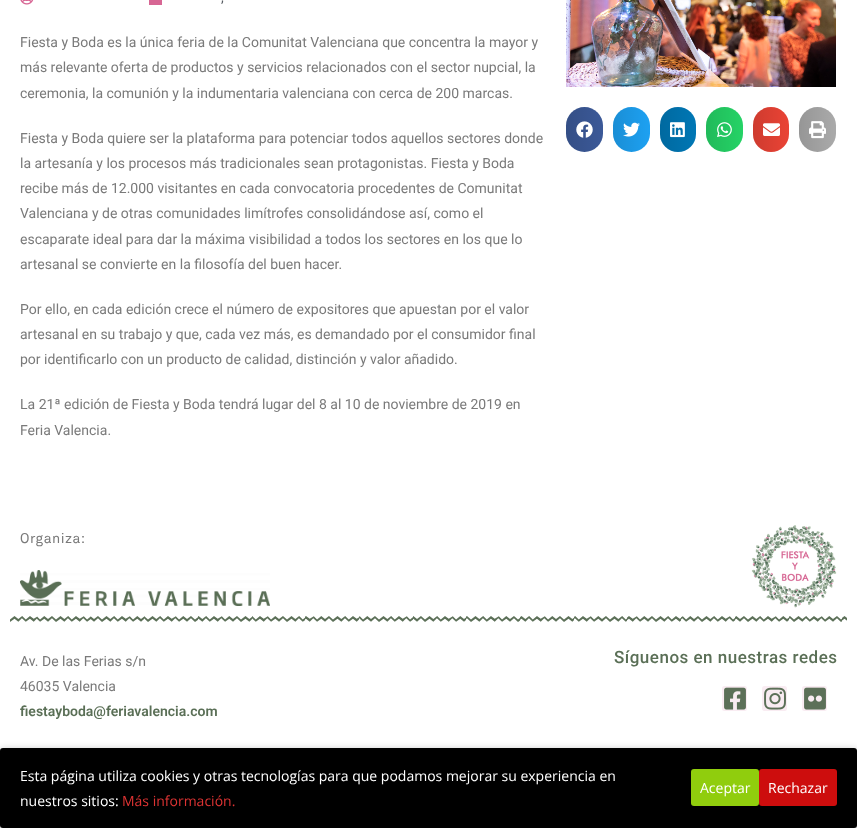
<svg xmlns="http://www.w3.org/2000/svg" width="857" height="828">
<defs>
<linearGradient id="g1" gradientUnits="userSpaceOnUse" x1="566" y1="130" x2="603" y2="130"><stop offset="0" stop-color="#000" stop-opacity="0.12"/><stop offset="1" stop-color="#000" stop-opacity="0"/></linearGradient>
<linearGradient id="g2" gradientUnits="userSpaceOnUse" x1="613" y1="130" x2="650" y2="130"><stop offset="0" stop-color="#000" stop-opacity="0.12"/><stop offset="1" stop-color="#000" stop-opacity="0"/></linearGradient>
<linearGradient id="g3" gradientUnits="userSpaceOnUse" x1="660" y1="130" x2="696" y2="130"><stop offset="0" stop-color="#000" stop-opacity="0.12"/><stop offset="1" stop-color="#000" stop-opacity="0"/></linearGradient>
<linearGradient id="g4" gradientUnits="userSpaceOnUse" x1="706" y1="130" x2="743" y2="130"><stop offset="0" stop-color="#000" stop-opacity="0.12"/><stop offset="1" stop-color="#000" stop-opacity="0"/></linearGradient>
<linearGradient id="g5" gradientUnits="userSpaceOnUse" x1="753" y1="130" x2="789" y2="130"><stop offset="0" stop-color="#000" stop-opacity="0.12"/><stop offset="1" stop-color="#000" stop-opacity="0"/></linearGradient>
<linearGradient id="g6" gradientUnits="userSpaceOnUse" x1="799" y1="130" x2="836" y2="130"><stop offset="0" stop-color="#000" stop-opacity="0.12"/><stop offset="1" stop-color="#000" stop-opacity="0"/></linearGradient>
</defs>
<rect width="100%" height="100%" fill="#fff"/>
<image x="20" y="0" width="14" height="5" href="media/1.png"/>
<rect x="149" width="13" height="5" fill="#d76694"/>
<text x="221" y="2" style="font-family:Roboto;font-size:14px;fill:#54595f">,</text>
<text x="20" y="47" style="font-family:Roboto;font-size:14px;fill:#7a7a7a">Fiesta y Boda es la única feria de la Comunitat Valenciana que concentra la mayor y</text>
<text x="20" y="72" style="font-family:Roboto;font-size:14px;fill:#7a7a7a">más relevante oferta de productos y servicios relacionados con el sector nupcial, la</text>
<text x="20" y="98" style="font-family:Roboto;font-size:14px;fill:#7a7a7a">ceremonia, la comunión y la indumentaria valenciana con cerca de 200 marcas.</text>
<text x="20" y="143" style="font-family:Roboto;font-size:14px;fill:#7a7a7a">Fiesta y Boda quiere ser la plataforma para potenciar todos aquellos sectores donde</text>
<text x="20" y="168" style="font-family:Roboto;font-size:14px;fill:#7a7a7a">la artesanía y los procesos más tradicionales sean protagonistas. Fiesta y Boda</text>
<text x="20" y="193" style="font-family:Roboto;font-size:14px;fill:#7a7a7a">recibe más de 12.000 visitantes en cada convocatoria procedentes de Comunitat</text>
<text x="20" y="218" style="font-family:Roboto;font-size:14px;fill:#7a7a7a">Valenciana y de otras comunidades limítrofes consolidándose así, como el</text>
<text x="20" y="244" style="font-family:Roboto;font-size:14px;fill:#7a7a7a">escaparate ideal para dar la máxima visibilidad a todos los sectores en los que lo</text>
<text x="20" y="269" style="font-family:Roboto;font-size:14px;fill:#7a7a7a">artesanal se convierte en la filosofía del buen hacer.</text>
<text x="20" y="314" style="font-family:Roboto;font-size:14px;fill:#7a7a7a">Por ello, en cada edición crece el número de expositores que apuestan por el valor</text>
<text x="20" y="339" style="font-family:Roboto;font-size:14px;fill:#7a7a7a">artesanal en su trabajo y que, cada vez más, es demandado por el consumidor final</text>
<text x="20" y="364" style="font-family:Roboto;font-size:14px;fill:#7a7a7a">por identificarlo con un producto de calidad, distinción y valor añadido.</text>
<text x="20" y="409" style="font-family:Roboto;font-size:14px;fill:#7a7a7a">La 21ª edición de Fiesta y Boda tendrá lugar del 8 al 10 de noviembre de 2019 en</text>
<text x="20" y="435" style="font-family:Roboto;font-size:14px;fill:#7a7a7a">Feria Valencia.</text>
<image x="566" y="0" width="270" height="87" href="media/2.png"/>
<rect x="566" y="107" width="37" height="45" rx="18.5" fill="#3b5998"/>
<rect x="566" y="107" width="37" height="45" rx="18.5" fill="url(#g1)"/>
<image x="576" y="121" width="17" height="17" href="media/3.png"/>
<rect x="613" y="107" width="37" height="45" rx="18.5" fill="#1da1f2"/>
<rect x="613" y="107" width="37" height="45" rx="18.5" fill="url(#g2)"/>
<image x="623" y="122" width="17" height="15" href="media/4.png"/>
<rect x="660" y="107" width="36" height="45" rx="18" fill="#0077b5"/>
<rect x="660" y="107" width="36" height="45" rx="18" fill="url(#g3)"/>
<image x="670" y="122" width="15" height="16" href="media/5.png"/>
<rect x="706" y="107" width="37" height="45" rx="18.5" fill="#25d366"/>
<rect x="706" y="107" width="37" height="45" rx="18.5" fill="url(#g4)"/>
<image x="717" y="122" width="15" height="15" href="media/6.png"/>
<rect x="753" y="107" width="36" height="45" rx="18" fill="#ea4335"/>
<rect x="753" y="107" width="36" height="45" rx="18" fill="url(#g5)"/>
<image x="763" y="123" width="17" height="13" href="media/7.png"/>
<rect x="799" y="107" width="37" height="45" rx="18.5" fill="#aaa"/>
<rect x="799" y="107" width="37" height="45" rx="18.5" fill="url(#g6)"/>
<image x="809" y="121" width="17" height="18" href="media/8.png"/>
<text x="20" y="543" style="font-family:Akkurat;font-size:14px;letter-spacing:0.5px;fill:#7a7a7a">Organiza:</text>
<image x="20" y="570" width="250" height="36" href="media/9.png"/>
<image x="751" y="525" width="86" height="83" href="media/10.png"/>
<image x="10" y="616" width="837" height="6" href="media/11.png"/>
<text x="20" y="666" style="font-family:Roboto;font-size:14px;fill:#7a7a7a">Av. De las Ferias s/n</text>
<text x="20" y="691" style="font-family:Roboto;font-size:14px;fill:#7a7a7a">46035 Valencia</text>
<text x="20" y="716" style="font-family:Roboto;font-size:14px;font-weight:600;fill:#5a6f56">fiestayboda@feriavalencia.com</text>
<text x="614" y="663" style="font-family:Roboto;font-size:17px;font-weight:500;letter-spacing:0.5px;fill:#5a6f56">Síguenos en nuestras redes</text>
<rect x="722" y="686" width="25" height="25" rx="2.5" fill="#f9ecf2"/>
<image x="724" y="687" width="22" height="23" href="media/12.png"/>
<rect x="762" y="686" width="25" height="25" rx="2.5" fill="#f9ecf2"/>
<image x="764" y="687" width="22" height="23" href="media/13.png"/>
<rect x="802" y="686" width="25" height="25" rx="2.5" fill="#f9ecf2"/>
<image x="804" y="687" width="22" height="23" href="media/14.png"/>
<rect y="751" width="857" height="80" rx="3" fill="#00000066" filter="blur(4.5px)"/>
<rect y="748" width="857" height="80" rx="3" fill="#000"/>
<text x="20" y="781" style="font-family:Open Sans;font-size:14px;fill:#fff">Esta página utiliza cookies y otras tecnologías para que podamos mejorar su experiencia en</text>
<text x="20" y="806" style="font-family:Open Sans;font-size:14px;fill:#fff">nuestros sitios:</text>
<text x="122" y="806" style="font-family:Open Sans;font-size:14px;fill:#d33">Más información.</text>
<rect x="691" y="769" width="68" height="37" rx="3" fill="#90cd0d"/>
<text x="700" y="793" style="font-family:Open Sans;font-size:14px;fill:#fff">Aceptar</text>
<rect x="759" y="769" width="78" height="37" rx="3" fill="#cd0d0d"/>
<text x="768" y="793" style="font-family:Open Sans;font-size:14px;fill:#fff">Rechazar</text>
</svg>
